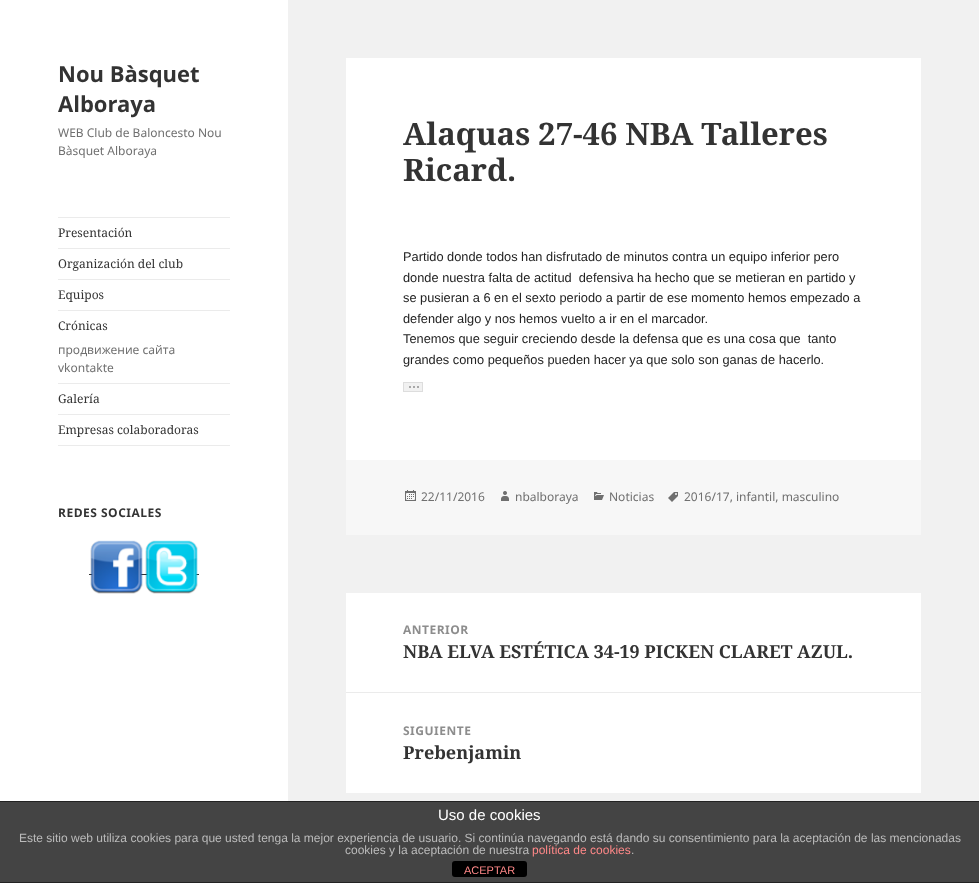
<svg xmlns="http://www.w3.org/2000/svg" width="979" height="883">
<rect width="100%" height="100%" fill="#f1f1f1"/>
<rect width="288" height="801" fill="#fff"/>
<text x="58" y="82" style="font-family:Noto Sans;font-size:22px;font-weight:bold;fill:#333">Nou Bàsquet</text>
<text x="58" y="112" style="font-family:Noto Sans;font-size:22px;font-weight:bold;fill:#333">Alboraya</text>
<text x="58" y="137" style="font-family:Noto Sans;font-size:12px;fill:#707070">WEB Club de Baloncesto Nou</text>
<text x="58" y="155" style="font-family:Noto Sans;font-size:12px;fill:#707070">Bàsquet Alboraya</text>
<rect x="58" y="217" width="172" height="1" fill="#ebebeb"/>
<rect x="58" y="445" width="172" height="1" fill="#ebebeb"/>
<text x="58" y="237" style="font-family:Noto Serif;font-size:12px;fill:#333">Presentación</text>
<rect x="58" y="248" width="172" height="1" fill="#ebebeb"/>
<text x="58" y="268" style="font-family:Noto Serif;font-size:12px;fill:#333">Organización del club</text>
<rect x="58" y="279" width="172" height="1" fill="#ebebeb"/>
<text x="58" y="299" style="font-family:Noto Serif;font-size:12px;fill:#333">Equipos</text>
<rect x="58" y="310" width="172" height="1" fill="#ebebeb"/>
<text x="58" y="330" style="font-family:Noto Serif;font-size:12px;fill:#333">Crónicas</text>
<text x="58" y="354" style="font-family:Noto Sans;font-size:12px;fill:#707070">продвижение сайта</text>
<text x="58" y="372" style="font-family:Noto Sans;font-size:12px;fill:#707070">vkontakte</text>
<rect x="58" y="383" width="172" height="1" fill="#ebebeb"/>
<text x="58" y="403" style="font-family:Noto Serif;font-size:12px;fill:#333">Galería</text>
<rect x="58" y="414" width="172" height="1" fill="#ebebeb"/>
<text x="58" y="434" style="font-family:Noto Serif;font-size:12px;fill:#333">Empresas colaboradoras</text>
<text x="58" y="517" style="font-family:Noto Sans;font-size:12px;font-weight:bold;letter-spacing:0.5px;fill:#333">REDES SOCIALES</text>
<rect x="89" y="574" width="110" height="1" fill="#333"/>
<image x="90" y="540" width="53" height="54" href="media/1.png"/>
<image x="145" y="540" width="53" height="54" href="media/2.png"/>
<rect x="346" y="58" width="575" height="402" fill="#fff"/>
<text x="403" y="145" style="font-family:Noto Serif;font-size:31px;font-weight:bold;fill:#333">Alaquas 27-46 NBA Talleres</text>
<text x="403" y="181" style="font-family:Noto Serif;font-size:31px;font-weight:bold;fill:#333">Ricard.</text>
<text x="403" y="261" style="font-family:Liberation Sans;font-size:12.8px;fill:#222">Partido donde todos han disfrutado de minutos contra un equipo inferior pero</text>
<text x="403" y="282" style="font-family:Liberation Sans;font-size:12.8px;fill:#222" xml:space="preserve">donde nuestra falta de actitud  defensiva ha hecho que se metieran en partido y</text>
<text x="403" y="302" style="font-family:Liberation Sans;font-size:12.8px;fill:#222">se pusieran a 6 en el sexto periodo a partir de ese momento hemos empezado a</text>
<text x="403" y="323" style="font-family:Liberation Sans;font-size:12.8px;fill:#222">defender algo y nos hemos vuelto a ir en el marcador.</text>
<text x="403" y="343" style="font-family:Liberation Sans;font-size:12.8px;fill:#222" xml:space="preserve">Tenemos que seguir creciendo desde la defensa que es una cosa que  tanto</text>
<text x="403" y="364" style="font-family:Liberation Sans;font-size:12.8px;fill:#222">grandes como pequeños pueden hacer ya que solo son ganas de hacerlo.</text>
<rect x="403.5" y="382.5" width="19" height="9" fill="#f1f1f1" stroke="#ddd"/>
<image x="409" y="386" width="10" height="2" href="media/3.png"/>
<rect x="346" y="460" width="575" height="75" fill="#f7f7f7"/>
<image x="405" y="490" width="11" height="11" href="media/4.png"/>
<text x="421" y="501" style="font-family:Noto Sans;font-size:12px;fill:#707070">22/11/2016</text>
<image x="501" y="491" width="8" height="10" href="media/5.png"/>
<text x="515" y="501" style="font-family:Noto Sans;font-size:12px;fill:#707070">nbalboraya</text>
<image x="594" y="492" width="10" height="8" href="media/6.png"/>
<text x="609" y="501" style="font-family:Noto Sans;font-size:12px;fill:#707070">Noticias</text>
<image x="668" y="492" width="10" height="10" href="media/7.png"/>
<text x="684" y="501" style="font-family:Noto Sans;font-size:12px;fill:#707070">2016/17, infantil, masculino</text>
<rect x="346" y="593" width="575" height="200" fill="#fff"/>
<text x="403" y="634" style="font-family:Noto Sans;font-size:12px;font-weight:bold;letter-spacing:0.5px;fill:#8d8d8d">ANTERIOR</text>
<text x="403" y="658" style="font-family:Noto Serif;font-size:18px;font-weight:bold;fill:#333">NBA ELVA ESTÉTICA 34-19 PICKEN CLARET AZUL.</text>
<rect x="346" y="692" width="575" height="1" fill="#ebebeb"/>
<text x="403" y="735" style="font-family:Noto Sans;font-size:12px;font-weight:bold;letter-spacing:0.5px;fill:#8d8d8d">SIGUIENTE</text>
<text x="403" y="759" style="font-family:Noto Serif;font-size:18px;font-weight:bold;fill:#333">Prebenjamin</text>
<rect y="802" width="979" height="80" fill="#444"/>
<rect y="801" width="979" height="1" fill="#222"/>
<rect y="882" width="979" height="1" fill="#222"/>
<text x="438" y="820" style="font-family:Liberation Sans;font-size:15px;fill:#fff">Uso de cookies</text>
<text x="19" y="842" style="font-family:Liberation Sans;font-size:12px;fill:#bbb">Este sitio web utiliza cookies para que usted tenga la mejor experiencia de usuario. Si continúa navegando está dando su consentimiento para la aceptación de las mencionadas</text>
<text x="345" y="854" style="font-family:Liberation Sans;font-size:12px;fill:#bbb">cookies y la aceptación de nuestra</text>
<text x="532" y="854" style="font-family:Liberation Sans;font-size:12px;fill:#f88">política de cookies</text>
<text x="631" y="854" style="font-family:Liberation Sans;font-size:12px;fill:#bbb">.</text>
<rect x="452" y="861" width="75" height="16" rx="3" fill="#000"/>
<text x="464" y="874" style="font-family:Liberation Sans;font-size:11px;fill:#f88">ACEPTAR</text>
</svg>
